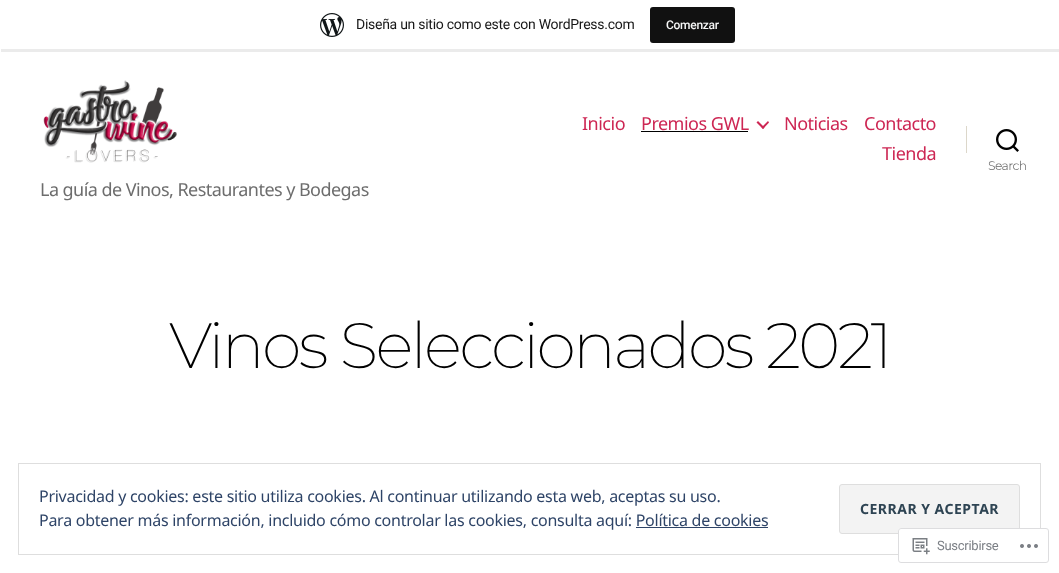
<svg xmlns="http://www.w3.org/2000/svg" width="1059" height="573">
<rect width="100%" height="100%" fill="#fff"/>
<path d="M1 49v3h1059v-49h-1v46z" fill="#00000014"/>
<image x="320" y="13" width="24" height="24" href="media/1.png"/>
<text x="356" y="29" style="font-family:Roboto;font-size:14px;letter-spacing:-0.27px;fill:#171717">Diseña un sitio como este con WordPress.com</text>
<rect x="650" y="7" width="85" height="36" rx="3" fill="#111"/>
<text x="666" y="29" style="font-family:Roboto;font-size:12px;font-weight:500;letter-spacing:-0.27px;fill:#f6f7f7">Comenzar</text>
<text x="582" y="130" style="font-family:Noto Sans;font-size:18px;letter-spacing:-0.5px;fill:#cd2653">Inicio</text>
<text x="641" y="130" style="font-family:Noto Sans;font-size:18px;letter-spacing:-0.5px;fill:#cd2653">Premios GWL</text>
<rect x="641" y="131" width="107" height="1" fill="#000"/>
<path d="M756.5 122.5l1.5-1.5l6.5 6.5l-1.5 1.5z" fill="#cd2653"/>
<path d="M761.5 127.5l6.5-6.5l1 1.5l-6 6.5z" fill="#cd2653"/>
<text x="784" y="130" style="font-family:Noto Sans;font-size:18px;letter-spacing:-0.5px;fill:#cd2653">Noticias</text>
<text x="864" y="130" style="font-family:Noto Sans;font-size:18px;letter-spacing:-0.5px;fill:#cd2653">Contacto</text>
<text x="882" y="160" style="font-family:Noto Sans;font-size:18px;letter-spacing:-0.5px;fill:#cd2653">Tienda</text>
<rect x="966" y="126" width="1" height="27" fill="#dcd7ca"/>
<image x="996" y="129" width="23" height="23" href="media/2.png"/>
<text x="988" y="170" style="font-family:Montserrat;font-size:12px;font-weight:bold;letter-spacing:-0.27px;fill:#6d6d6d">Search</text>
<image x="43" y="80" width="134" height="83" href="media/3.png"/>
<text x="40" y="196" style="font-family:Noto Sans;font-size:18px;letter-spacing:-0.55px;fill:#6d6d6d">La guía de Vinos, Restaurantes y Bodegas</text>
<text x="169" y="368" style="font-family:Montserrat;font-size:64px;font-weight:100;letter-spacing:-2.7px;fill:#000">Vinos Seleccionados 2021</text>
<rect x="18.5" y="463.5" width="1022" height="91" fill="none" stroke="#dedede"/>
<text x="39" y="502" style="font-family:Noto Sans;font-size:16px;letter-spacing:-0.27px;fill:#2e4467">Privacidad y cookies: este sitio utiliza cookies. Al continuar utilizando esta web, aceptas su uso.</text>
<rect x="839.5" y="484.5" width="180" height="49" rx="2.5" fill="#f3f3f3" stroke="#dedede"/>
<text x="860" y="514" style="font-family:Noto Sans;font-size:14px;font-weight:bold;letter-spacing:0.5px;fill:#2e4453">CERRAR Y ACEPTAR</text>
<text x="39" y="526" style="font-family:Noto Sans;font-size:16px;letter-spacing:-0.27px;fill:#2e4467">Para obtener más información, incluido cómo controlar las cookies, consulta aquí: Política de cookies</text>
<rect x="636" y="527" width="132" height="1" fill="#2e4467"/>
<rect x="898" y="528" width="151" height="35" rx="3" fill="#fffffffa"/>
<rect x="898.5" y="528.5" width="150" height="34" rx="2.5" fill="none" stroke="#dcdcdefa"/>
<image x="912" y="538" width="18" height="17" href="media/4.png"/>
<text x="937" y="550" style="font-family:Roboto;font-size:13px;letter-spacing:-0.27px;fill:#7b7f85">Suscribirse</text>
<image x="1020" y="544" width="18" height="4" href="media/5.png"/>
</svg>
